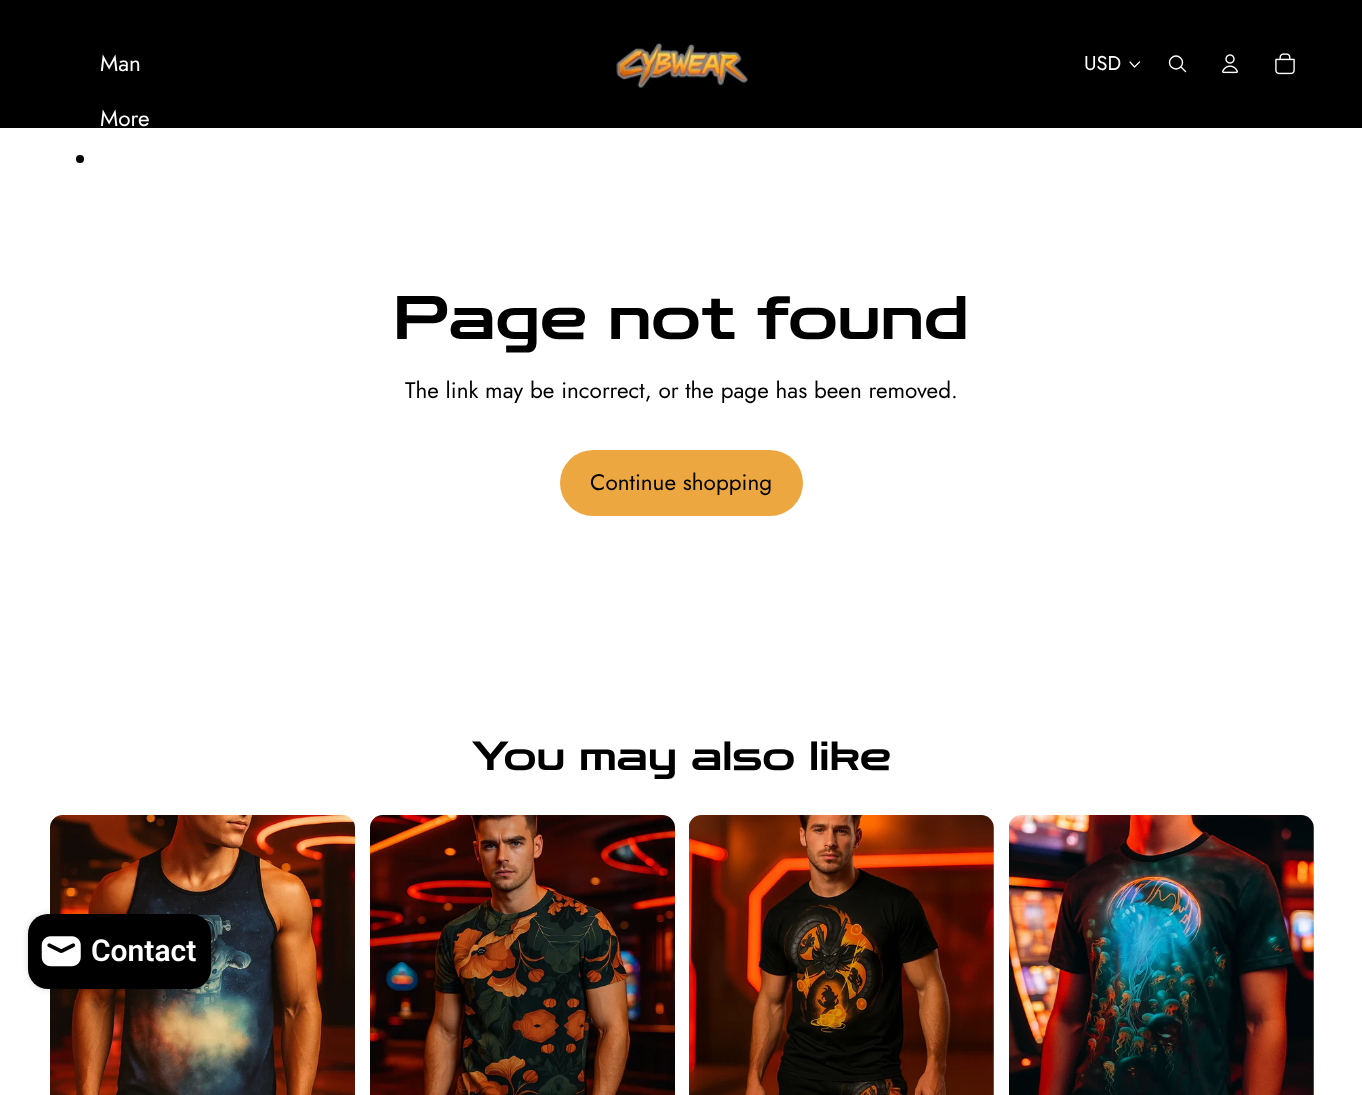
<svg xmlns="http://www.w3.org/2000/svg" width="1362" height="1095">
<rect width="100%" height="100%" fill="#fff"/>
<rect width="1362" height="128" fill="#000"/>
<text x="100" y="71" style="font-family:Jost;font-size:22.5px;fill:#fff">Man</text>
<text x="100" y="126" style="font-family:Jost;font-size:22.5px;fill:#fff">More</text>
<circle cx="80" cy="159" r="4" fill="#000"/>
<image x="616" y="42" width="132" height="46" href="media/1.png"/>
<text x="1084" y="70" style="font-family:Jost;font-size:20px;fill:#fff">USD</text>
<path d="M1139.5 62l-5 5l-4.5-5" fill="none" stroke="#fff" stroke-width="1.2" stroke-linecap="round" stroke-linejoin="round"/>
<circle cx="1176" cy="62.5" r="6.5" fill="none" stroke="#fff" stroke-width="1.4"/>
<path d="M1181 67l4.5 4.5" fill="none" stroke="#fff" stroke-width="1.4" stroke-linecap="round" stroke-linejoin="round"/>
<image x="1222" y="54" width="16" height="20" href="media/2.png"/>
<image x="1275" y="53" width="20" height="22" href="media/3.png"/>
<text x="393" y="339" style="font-family:Zen Dots;font-size:60px;fill:#000">Page not found</text>
<text x="405" y="398" style="font-family:Jost;font-size:22.5px;fill:#000">The link may be incorrect, or the page has been removed.</text>
<rect x="560" y="450" width="243" height="66" rx="33" fill="#eda740"/>
<text x="590" y="490" style="font-family:Jost;font-size:22.5px;fill:#000">Continue shopping</text>
<text x="472" y="770" style="font-family:Zen Dots;font-size:40px;fill:#000">You may also like</text>
<image x="50" y="815" width="305" height="280" href="media/4.png"/>
<image x="370" y="815" width="305" height="280" href="media/5.png"/>
<rect x="689" y="815" width="305" height="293" rx="13" fill="#efefef"/>
<image x="689" y="815" width="305" height="280" href="media/6.png"/>
<image x="1009" y="815" width="305" height="280" href="media/7.png"/>
<rect x="28" y="914" width="183" height="75" rx="20" fill="#00000026" filter="blur(3px)"/>
<rect x="28" y="914" width="183" height="75" rx="20" fill="#000"/>
<image x="41" y="936" width="40" height="31" href="media/8.png"/>
<text x="91" y="961" style="font-family:Roboto;font-size:30px;font-weight:600;fill:#fff">Contact</text>
</svg>
